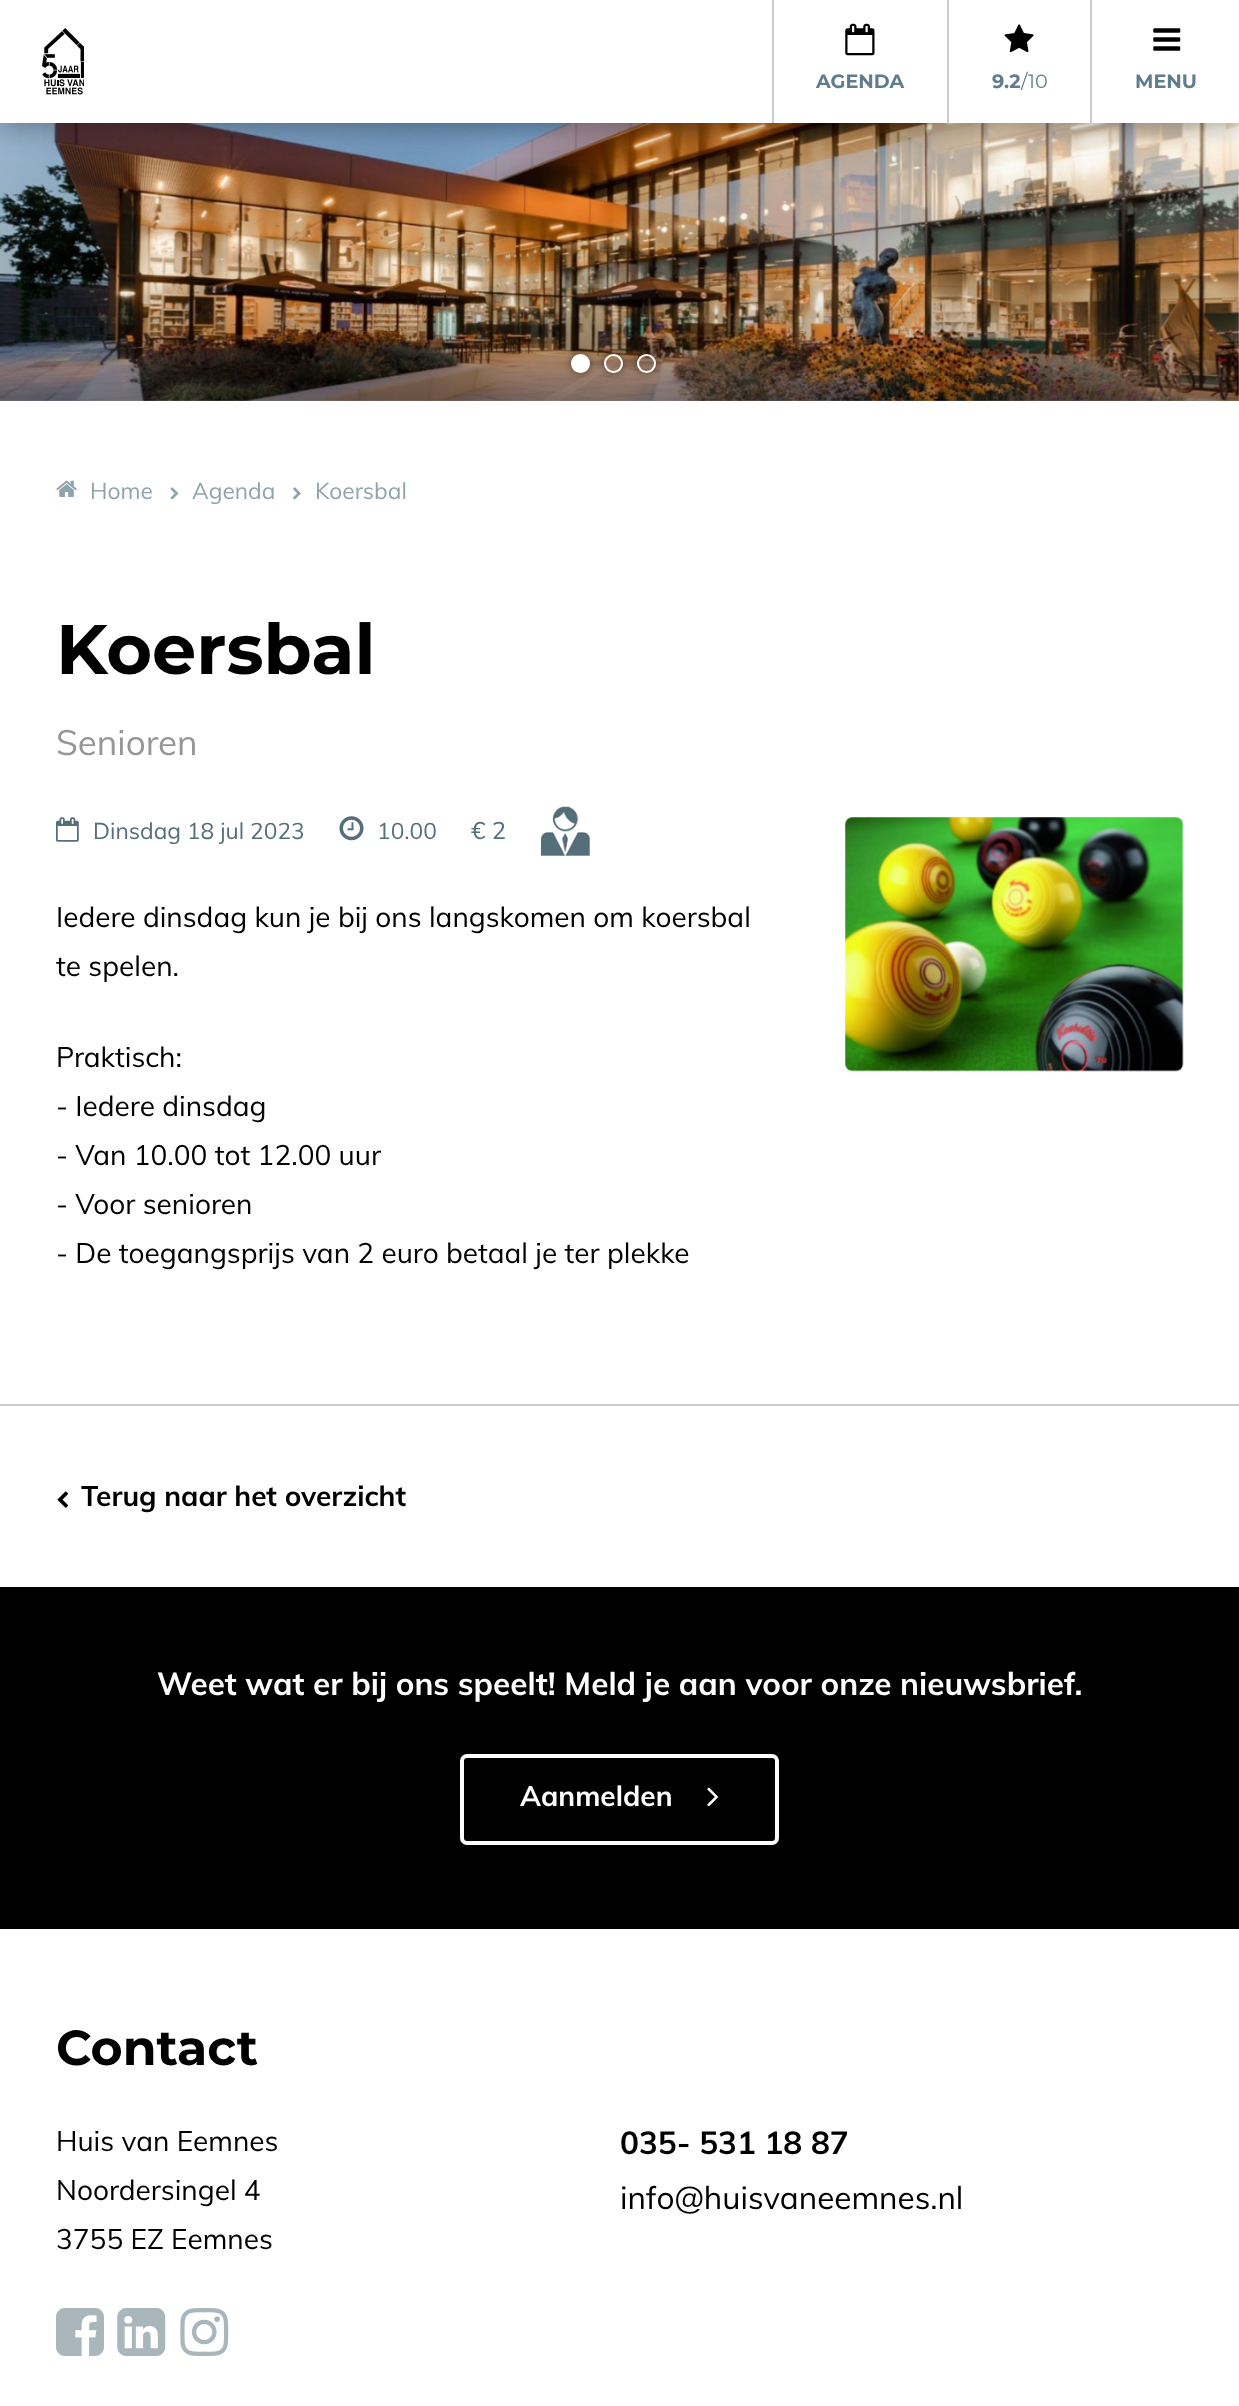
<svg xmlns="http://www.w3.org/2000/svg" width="1239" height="2406">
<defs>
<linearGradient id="g1" gradientUnits="userSpaceOnUse" x1="620" y1="401" x2="620" y2="278"><stop offset="0" stop-color="#000" stop-opacity="0.4"/><stop offset="0.4" stop-color="#000" stop-opacity="0.2"/><stop offset="1" stop-color="#000" stop-opacity="0"/></linearGradient>
<clipPath id="clip1"><path d="M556 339h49v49h-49zm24.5 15c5 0 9.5 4.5 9.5 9.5c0 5-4.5 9.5-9.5 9.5c-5 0-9.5-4.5-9.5-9.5c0-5 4.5-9.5 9.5-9.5z" clip-rule="evenodd"/></clipPath>
<clipPath id="clip2"><path d="M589 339h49v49h-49zm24.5 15c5 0 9.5 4.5 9.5 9.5c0 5-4.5 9.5-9.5 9.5c-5 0-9.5-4.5-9.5-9.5c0-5 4.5-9.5 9.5-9.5z" clip-rule="evenodd"/></clipPath>
<clipPath id="clip3"><path d="M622 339h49v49h-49zm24.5 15c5 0 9.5 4.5 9.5 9.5c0 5-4.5 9.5-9.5 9.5c-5 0-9.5-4.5-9.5-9.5c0-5 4.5-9.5 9.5-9.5z" clip-rule="evenodd"/></clipPath>
</defs>
<rect width="100%" height="100%" fill="#fff"/>
<image x="0" y="123" width="1239" height="278" href="media/5.png"/>
<rect y="5" width="1239" height="123" fill="#0000004d" filter="blur(13px)"/>
<rect width="1239" height="123" fill="#fff"/>
<image x="42" y="28" width="42" height="67" href="media/1.png"/>
<rect x="947" width="2" height="123" fill="#ccc"/>
<rect x="772" width="2" height="123" fill="#ccc"/>
<image x="845" y="23" width="30" height="33" href="media/2.png"/>
<text x="816" y="88" style="font-family:Montserrat;font-size:19.25px;font-weight:bold;fill:#607d8b">AGENDA</text>
<rect x="1090" width="2" height="123" fill="#ccc"/>
<image x="1004" y="24" width="30" height="29" href="media/3.png"/>
<text x="992" y="88" style="font-family:Montserrat;font-size:19.25px;font-weight:bold;fill:#607d8b">9.2</text>
<text x="1021" y="88" style="font-family:Montserrat;font-size:19.25px;fill:#607d8b">/10</text>
<image x="1153" y="28" width="28" height="23" href="media/4.png"/>
<text x="1135" y="88" style="font-family:Montserrat;font-size:19.25px;font-weight:bold;fill:#607d8b">MENU</text>
<rect y="286" width="1239" height="115" fill="url(#g1)"/>
<g clip-path="url(#clip1)">
<rect x="571" y="354" width="19" height="19" rx="9.5" fill="#00000080" filter="blur(4.5px)"/>
</g>
<circle cx="580.5" cy="363.5" r="8.5" fill="#fff" stroke="#fff" stroke-width="2"/>
<g clip-path="url(#clip2)">
<rect x="604" y="354" width="19" height="19" rx="9.5" fill="#00000080" filter="blur(4.5px)"/>
</g>
<circle cx="613.5" cy="363.5" r="8.5" fill="none" stroke="#fff" stroke-width="2"/>
<g clip-path="url(#clip3)">
<rect x="637" y="354" width="19" height="19" rx="9.5" fill="#00000080" filter="blur(4.5px)"/>
</g>
<circle cx="646.5" cy="363.5" r="8.5" fill="none" stroke="#fff" stroke-width="2"/>
<image x="56" y="480" width="21" height="17" href="media/6.png"/>
<text x="90" y="499" style="font-family:Muli;font-size:22.75px;fill:#90a4ae">Home</text>
<image x="170" y="487" width="9" height="13" href="media/7.png"/>
<text x="192" y="499" style="font-family:Muli;font-size:22.75px;fill:#90a4ae">Agenda</text>
<image x="293" y="487" width="8" height="13" href="media/8.png"/>
<text x="315" y="499" style="font-family:Muli;font-size:22.75px;fill:#90a4ae">Koersbal</text>
<text x="56" y="674" style="font-family:Montserrat;font-size:70px;font-weight:bold;fill:#000">Koersbal</text>
<text x="56" y="755" style="font-family:Muli;font-size:35px;fill:#959696">Senioren</text>
<image x="56" y="817" width="23" height="25" href="media/9.png"/>
<text x="93" y="839" style="font-family:Muli;font-size:22.75px;fill:#546e7a">Dinsdag 18 jul 2023</text>
<image x="339" y="816" width="25" height="25" href="media/10.png"/>
<text x="377" y="839" style="font-family:Muli;font-size:22.75px;fill:#546e7a">10.00</text>
<text x="471" y="839" style="font-family:Muli;font-size:24px;fill:#546e7a">€ 2</text>
<image x="540" y="806" width="50" height="50" href="media/11.png"/>
<image x="845" y="817" width="339" height="255" href="media/12.png"/>
<text x="56" y="927" style="font-family:Muli;font-size:28px;fill:#000">Iedere dinsdag kun je bij ons langskomen om koersbal</text>
<text x="56" y="976" style="font-family:Muli;font-size:28px;fill:#000">te spelen.</text>
<text x="56" y="1067" style="font-family:Muli;font-size:28px;fill:#000">Praktisch:</text>
<text x="56" y="1116" style="font-family:Muli;font-size:28px;fill:#000">- Iedere dinsdag</text>
<text x="56" y="1165" style="font-family:Muli;font-size:28px;fill:#000">- Van 10.00 tot 12.00 uur</text>
<text x="56" y="1214" style="font-family:Muli;font-size:28px;fill:#000">- Voor senioren</text>
<text x="56" y="1263" style="font-family:Muli;font-size:28px;fill:#000">- De toegangsprijs van 2 euro betaal je ter plekke</text>
<rect y="1404" width="1239" height="2" fill="#ccc"/>
<image x="57" y="1491" width="11" height="17" href="media/13.png"/>
<text x="81" y="1506" style="font-family:Muli;font-size:28px;font-weight:bold;fill:#000">Terug naar het overzicht</text>
<rect y="1587" width="1239" height="342" fill="#000"/>
<text x="157" y="1695" style="font-family:Muli;font-size:31.5px;font-weight:bold;fill:#fff">Weet wat er bij ons speelt! Meld je aan voor onze nieuwsbrief.</text>
<rect x="462" y="1756" width="315" height="87" rx="5" fill="none" stroke="#fff" stroke-width="4"/>
<text x="520" y="1806" style="font-family:Muli;font-size:28px;font-weight:bold;fill:#fff">Aanmelden</text>
<image x="707" y="1787" width="12" height="20" href="media/14.png"/>
<text x="56" y="2065" style="font-family:Montserrat;font-size:49px;font-weight:bold;fill:#000">Contact</text>
<text x="56" y="2151" style="font-family:Muli;font-size:28px;fill:#000">Huis van Eemnes</text>
<text x="56" y="2200" style="font-family:Muli;font-size:28px;fill:#000">Noordersingel 4</text>
<text x="56" y="2249" style="font-family:Muli;font-size:28px;fill:#000">3755 EZ Eemnes</text>
<text x="620" y="2154" style="font-family:Muli;font-size:31.5px;font-weight:bold;fill:#000">035- 531 18 87</text>
<text x="620" y="2209" style="font-family:Muli;font-size:31.5px;fill:#000">info@huisvaneemnes.nl</text>
<image x="56" y="2308" width="48" height="48" href="media/15.png"/>
<image x="117" y="2308" width="49" height="48" href="media/16.png"/>
<image x="180" y="2308" width="49" height="48" href="media/17.png"/>
</svg>
